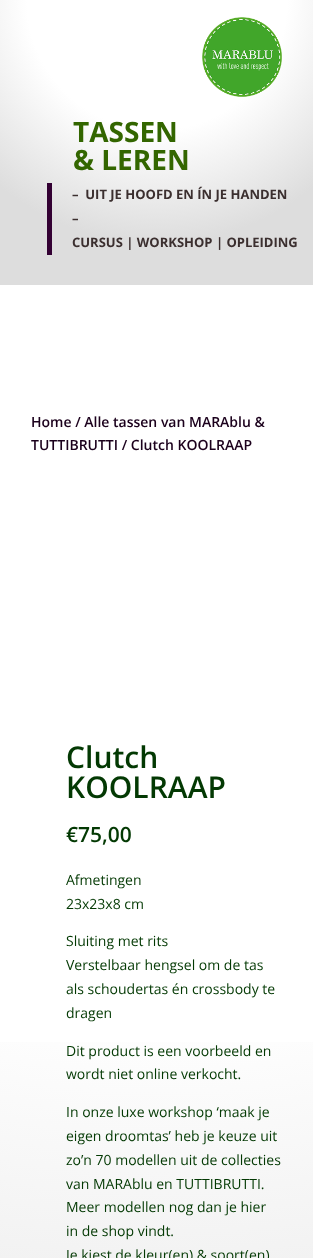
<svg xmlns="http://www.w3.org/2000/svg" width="313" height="1258">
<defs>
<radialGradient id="g1" gradientUnits="userSpaceOnUse" cx="157" cy="0" r="325"><stop offset="0.4" stop-color="#fff"/><stop offset="0.75" stop-color="#ddd"/></radialGradient>
<radialGradient id="g2" gradientUnits="userSpaceOnUse" cx="157" cy="229" r="1954"><stop offset="0.4" stop-color="#fff"/><stop offset="0.75" stop-color="#ddd"/></radialGradient>
</defs>
<rect width="100%" height="100%" fill="#fff"/>
<rect width="313" height="285" fill="url(#g1)"/>
<image x="202" y="17" width="80" height="80" href="media/1.png"/>
<text x="73" y="142" style="font-family:Open Sans;font-size:28px;font-weight:bold;fill:#360">TASSEN</text>
<text x="73" y="170" style="font-family:Open Sans;font-size:28px;font-weight:bold;fill:#360">&amp; LEREN</text>
<rect x="47" y="183" width="5" height="72" fill="#303"/>
<text x="72" y="199" style="font-family:Open Sans;font-size:13px;font-weight:bold;fill:#3b2f2f" xml:space="preserve">–  UIT JE HOOFD EN ÍN JE HANDEN</text>
<text x="72" y="223" style="font-family:Open Sans;font-size:13px;font-weight:bold;fill:#3b2f2f">–</text>
<text x="72" y="247" style="font-family:Open Sans;font-size:13px;font-weight:bold;fill:#3b2f2f">CURSUS | WORKSHOP | OPLEIDING</text>
<rect y="1042" width="313" height="216" fill="url(#g2)"/>
<text x="31" y="427" style="font-family:Open Sans;font-size:14px;font-weight:600;fill:#1b001c">Home / Alle tassen van MARAblu &amp;</text>
<text x="31" y="450" style="font-family:Open Sans;font-size:14px;font-weight:600;fill:#1b001c">TUTTIBRUTTI / Clutch KOOLRAAP</text>
<text x="66" y="768" style="font-family:Open Sans;font-size:30px;font-weight:600;fill:#033903">Clutch</text>
<text x="66" y="798" style="font-family:Open Sans;font-size:30px;font-weight:600;fill:#033903">KOOLRAAP</text>
<text x="66" y="842" style="font-family:Open Sans;font-size:21px;font-weight:600;fill:#033903">€75,00</text>
<text x="66" y="885" style="font-family:Open Sans;font-size:14px;fill:#033903">Afmetingen</text>
<text x="66" y="909" style="font-family:Open Sans;font-size:14px;fill:#033903">23x23x8 cm</text>
<text x="66" y="946" style="font-family:Open Sans;font-size:14px;fill:#033903">Sluiting met rits</text>
<text x="66" y="970" style="font-family:Open Sans;font-size:14px;fill:#033903">Verstelbaar hengsel om de tas</text>
<text x="66" y="994" style="font-family:Open Sans;font-size:14px;fill:#033903">als schoudertas én crossbody te</text>
<text x="66" y="1018" style="font-family:Open Sans;font-size:14px;fill:#033903">dragen</text>
<text x="66" y="1056" style="font-family:Open Sans;font-size:14px;fill:#033903">Dit product is een voorbeeld en</text>
<text x="66" y="1079" style="font-family:Open Sans;font-size:14px;fill:#033903">wordt niet online verkocht.</text>
<text x="66" y="1117" style="font-family:Open Sans;font-size:14px;fill:#033903">In onze luxe workshop ‘maak je</text>
<text x="66" y="1141" style="font-family:Open Sans;font-size:14px;fill:#033903">eigen droomtas’ heb je keuze uit</text>
<text x="66" y="1165" style="font-family:Open Sans;font-size:14px;fill:#033903">zo’n 70 modellen uit de collecties</text>
<text x="66" y="1189" style="font-family:Open Sans;font-size:14px;fill:#033903">van MARAblu en TUTTIBRUTTI.</text>
<text x="66" y="1212" style="font-family:Open Sans;font-size:14px;fill:#033903">Meer modellen nog dan je hier</text>
<text x="66" y="1236" style="font-family:Open Sans;font-size:14px;fill:#033903">in de shop vindt.</text>
<text x="66" y="1260" style="font-family:Open Sans;font-size:14px;fill:#033903">Je kiest de kleur(en) &amp; soort(en)</text>
</svg>
